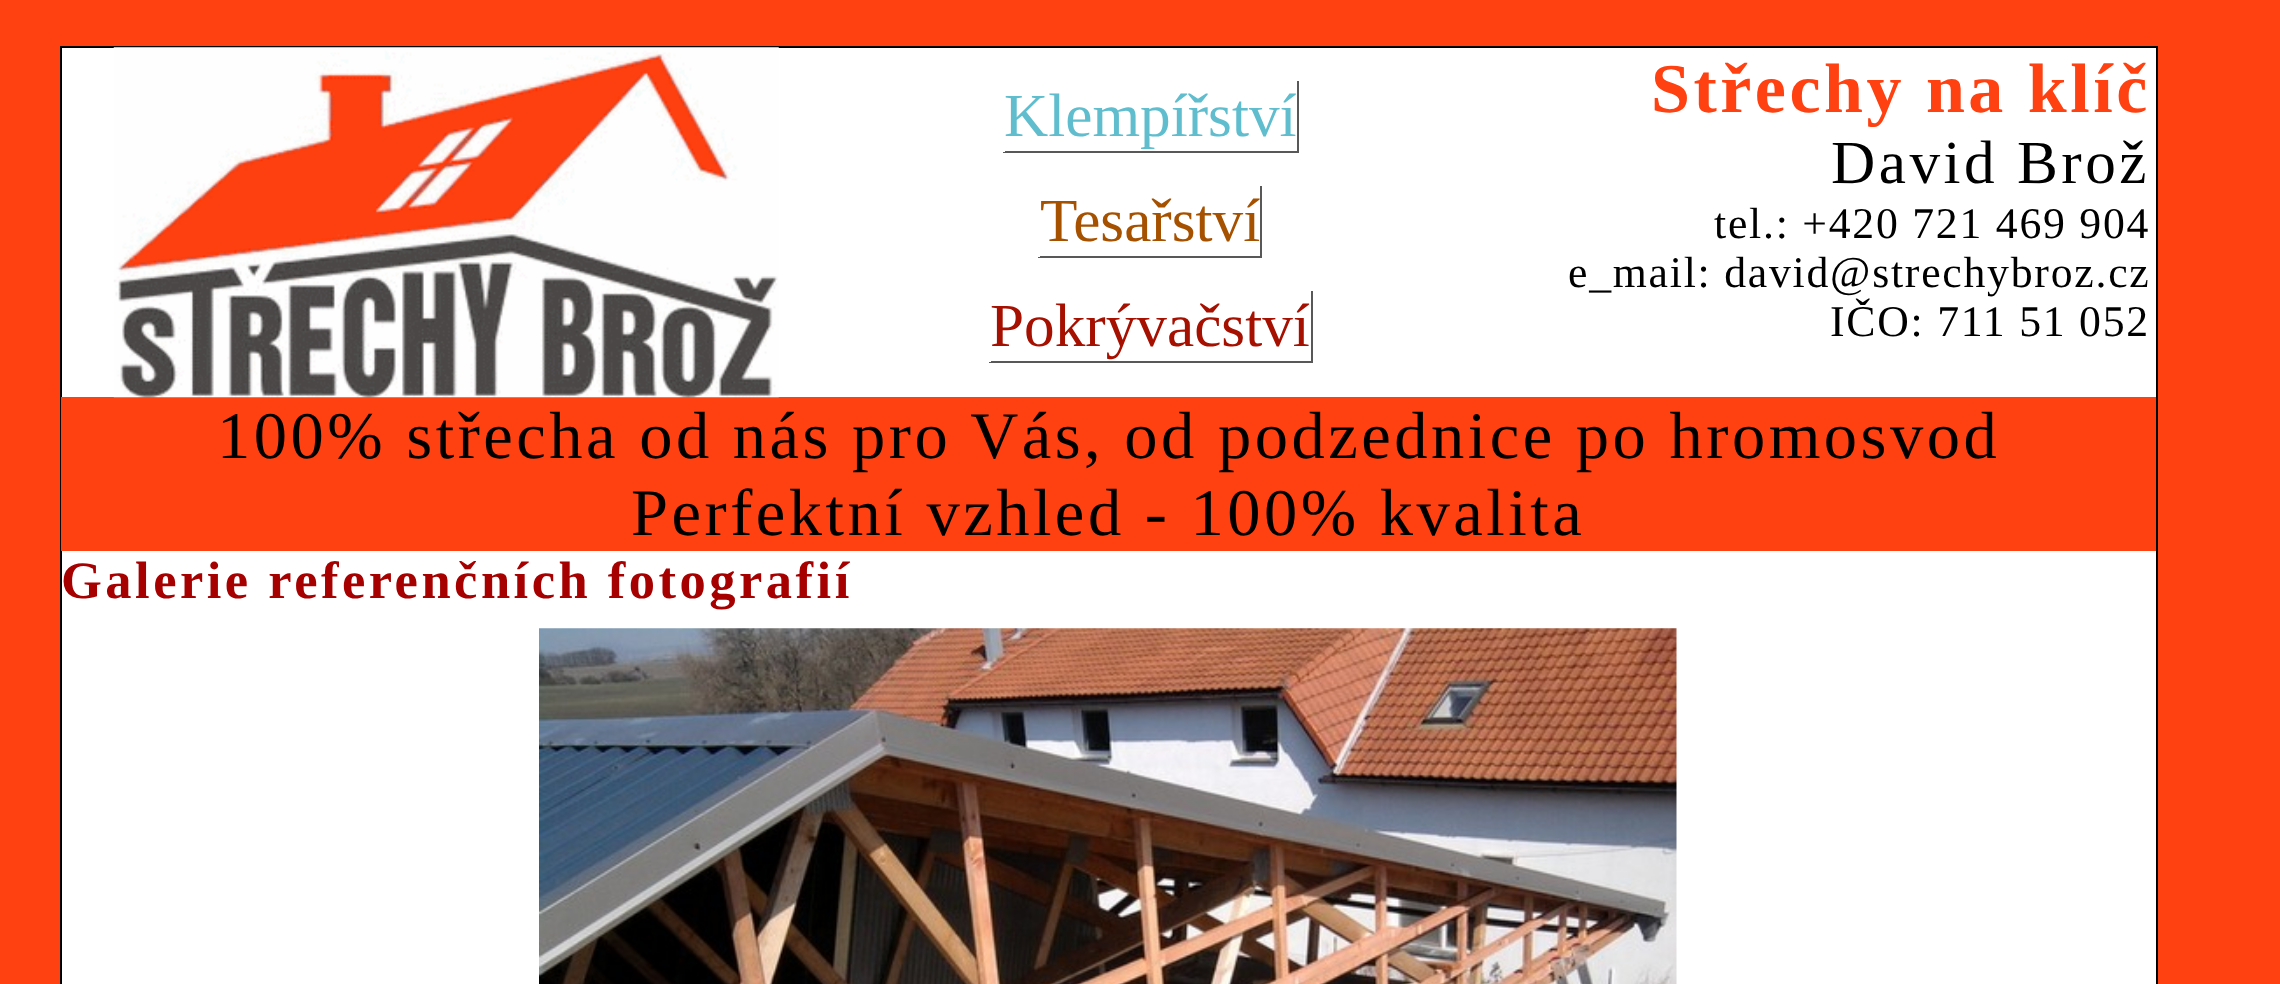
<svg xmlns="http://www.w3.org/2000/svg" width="2280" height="984">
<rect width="100%" height="100%" fill="#ff4010"/>
<rect x="61" y="47" width="2096" height="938" fill="#fff" stroke="#000" stroke-width="2"/>
<rect x="61" y="397" width="2095" height="154" fill="#ff4010"/>
<image x="113" y="47" width="666" height="351" href="media/1.png"/>
<text x="1004" y="136" style="font-family:Liberation Serif;font-size:61.25px;fill:#5fbdce">Klempířství</text>
<rect x="1297" y="81" width="2" height="71" fill="#585858"/>
<rect x="1003" y="151" width="296" height="2" fill="#585858"/>
<rect x="1003" y="151" width="2" height="1" fill="#fff"/>
<text x="1040" y="241" style="font-family:Liberation Serif;font-size:61.25px;fill:#a65100">Tesařství</text>
<rect x="1260" y="186" width="2" height="71" fill="#585858"/>
<rect x="1038" y="256" width="224" height="2" fill="#585858"/>
<rect x="1038" y="256" width="2" height="1" fill="#fff"/>
<text x="990" y="346" style="font-family:Liberation Serif;font-size:61.25px;fill:#a61000">Pokrývačství</text>
<rect x="1311" y="291" width="2" height="71" fill="#585858"/>
<rect x="989" y="361" width="324" height="2" fill="#585858"/>
<rect x="989" y="361" width="2" height="1" fill="#fff"/>
<text x="1651" y="112" style="font-family:Liberation Serif;font-size:70px;font-weight:bold;letter-spacing:3.5px;fill:#ff4010">Střechy na klíč</text>
<text x="1831" y="183" style="font-family:Liberation Serif;font-size:61.25px;letter-spacing:3.5px;fill:#000">David Brož</text>
<text x="1714" y="238" style="font-family:Liberation Serif;font-size:43.75px;letter-spacing:1.75px;fill:#000">tel.: +420 721 469 904</text>
<text x="1568" y="287" style="font-family:Liberation Serif;font-size:43.75px;letter-spacing:1.75px;fill:#000">e_mail: david@strechybroz.cz</text>
<text x="1830" y="336" style="font-family:Liberation Serif;font-size:43.75px;letter-spacing:1.75px;fill:#000">IČO: 711 51 052</text>
<text x="217" y="458" style="font-family:Liberation Serif;font-size:66.5px;letter-spacing:3.5px;fill:#000">100% střecha od nás pro Vás, od podzednice po hromosvod</text>
<text x="631" y="535" style="font-family:Liberation Serif;font-size:66.5px;letter-spacing:3.5px;fill:#000">Perfektní vzhled - 100% kvalita</text>
<text x="61" y="598" style="font-family:Liberation Serif;font-size:52.5px;font-weight:bold;letter-spacing:3.5px;fill:#a60000">Galerie referenčních fotografií</text>
<image x="539" y="628" width="1138" height="356" href="media/2.png"/>
</svg>
